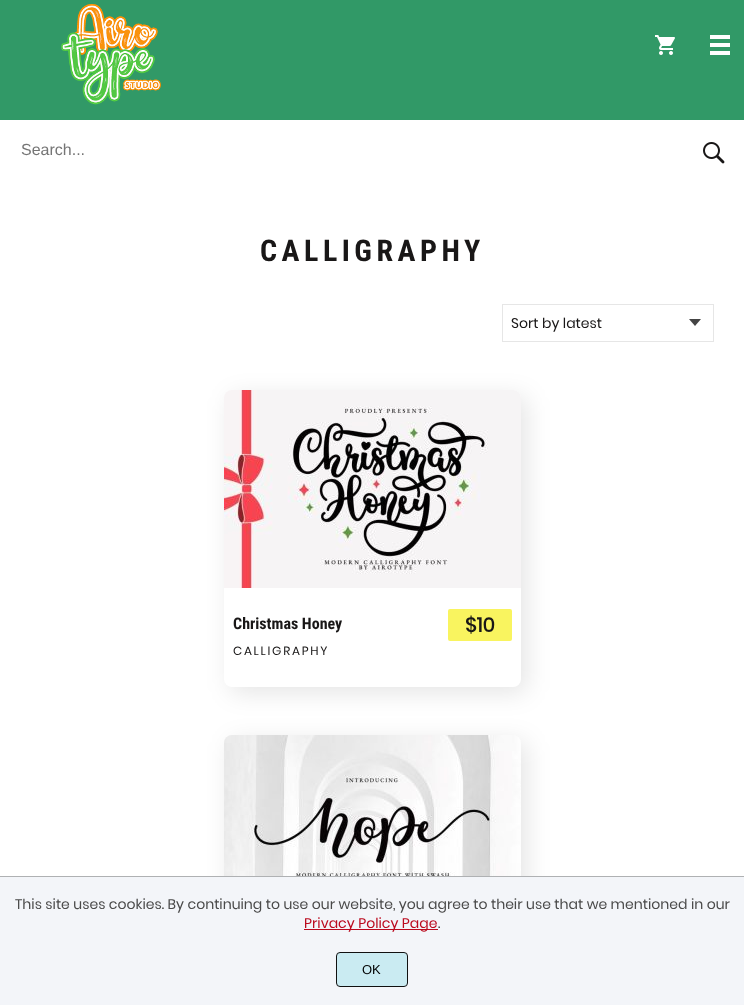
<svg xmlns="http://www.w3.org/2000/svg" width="744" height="1005">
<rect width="100%" height="100%" fill="#fff"/>
<rect width="744" height="120" fill="#319967"/>
<image x="61" y="4" width="100" height="101" href="media/1.png"/>
<image x="655" y="35" width="20" height="20" href="media/2.png"/>
<rect x="710" y="35" width="20" height="4" fill="#fff"/>
<rect x="710" y="43" width="20" height="4" fill="#fff"/>
<rect x="710" y="51" width="20" height="4" fill="#fff"/>
<text x="21" y="155" style="font-family:Liberation Sans;font-size:16px;fill:#757575">Search...</text>
<image x="703" y="142" width="22" height="22" href="media/3.png"/>
<text x="260" y="261" style="font-family:Roboto Condensed;font-size:30px;font-weight:bold;letter-spacing:4.5px;fill:#191717">CALLIGRAPHY</text>
<path d="M695 326l-6-7h12z" fill="#444" fill-rule="evenodd"/>
<rect x="502.5" y="304.5" width="211" height="37" fill="none" stroke="#e6e6e6"/>
<text x="511" y="328" style="font-family:Poppins;font-size:14px;fill:#191717">Sort by latest</text>
<rect x="230" y="396" width="297" height="297" rx="8" fill="#0000001a" filter="blur(12px)"/>
<rect x="224" y="390" width="297" height="297" rx="8" fill="#fff"/>
<image x="224" y="390" width="297" height="198" href="media/4.png"/>
<text x="233" y="629" style="font-family:Roboto Condensed;font-size:16px;font-weight:bold;fill:#191717">Christmas Honey</text>
<text x="233" y="655" style="font-family:Poppins;font-size:12px;letter-spacing:1.75px;fill:#191717">CALLIGRAPHY</text>
<rect x="448" y="609" width="64" height="32" rx="2" fill="#f9f45f"/>
<text x="465" y="632" style="font-family:Poppins;font-size:20px;font-weight:bold;fill:#191717">$10</text>
<rect x="230" y="741" width="297" height="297" rx="8" fill="#0000001a" filter="blur(12px)"/>
<image x="224" y="735" width="297" height="141" href="media/5.png"/>
<rect y="877" width="744" height="128" fill="#f3f5f9"/>
<rect y="876" width="744" height="1" fill="#afb1b3"/>
<text x="15" y="909" style="font-family:Poppins;font-size:14px;fill:#4a4a4a">This site uses cookies. By continuing to use our website, you agree to their use that we mentioned in our</text>
<rect x="304" y="929" width="134" height="1" fill="#bb0a1e"/>
<text x="304" y="928" style="font-family:Poppins;font-size:14px;fill:#bb0a1e">Privacy Policy Page</text>
<text x="438" y="928" style="font-family:Poppins;font-size:14px;fill:#4a4a4a">.</text>
<rect x="336.5" y="952.5" width="71" height="34" rx="3.5" fill="#caebf2" stroke="#111"/>
<text x="362" y="974" style="font-family:Liberation Sans;font-size:13px;fill:#000">OK</text>
</svg>
